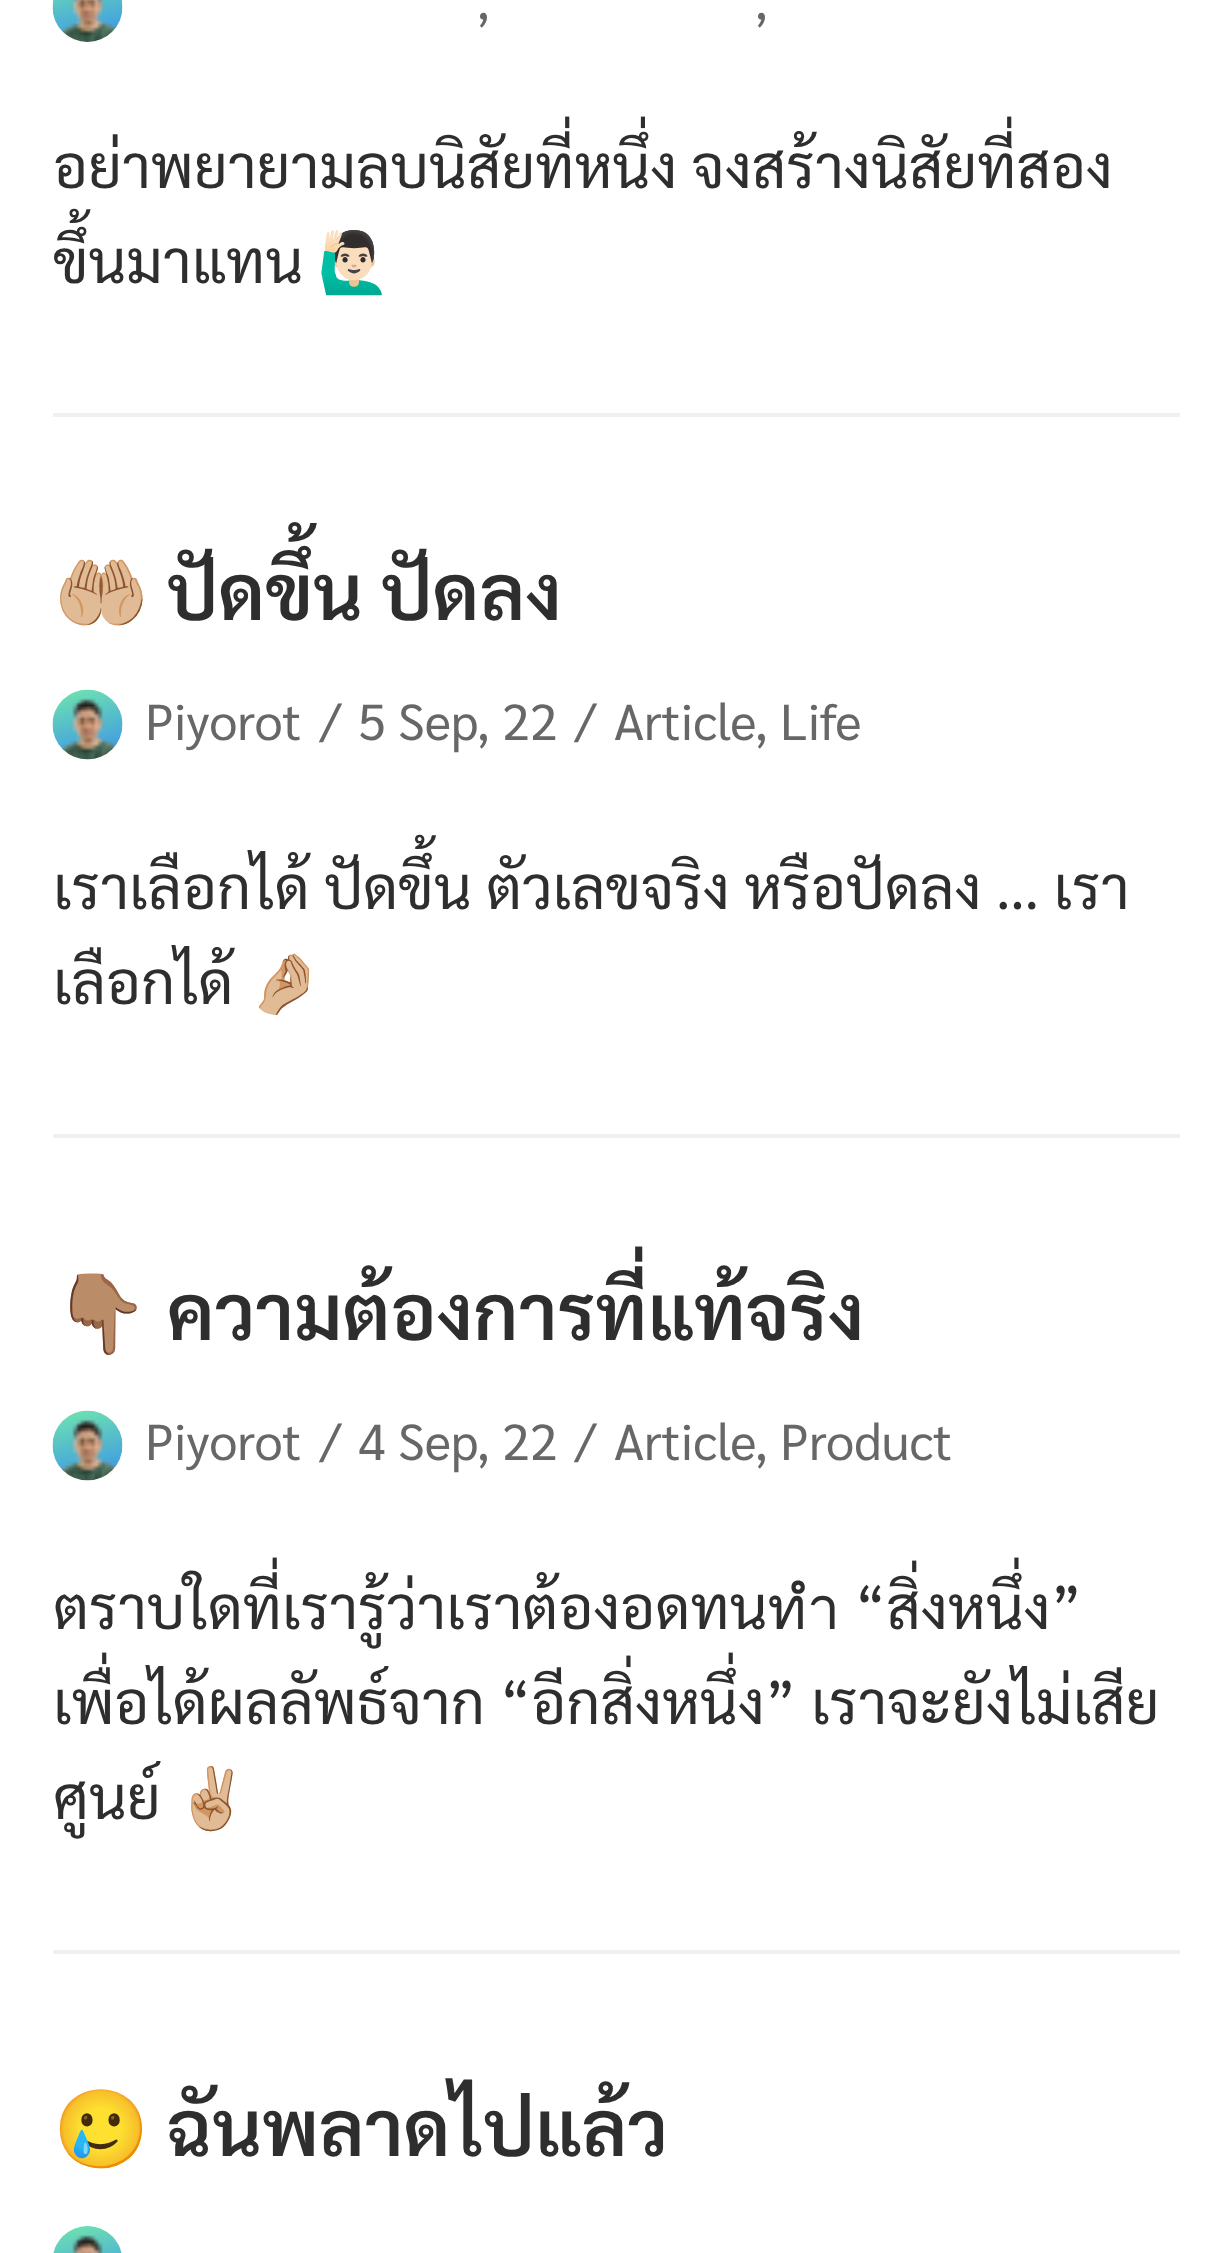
<svg xmlns="http://www.w3.org/2000/svg" width="1230" height="2253">
<rect width="100%" height="100%" fill="#fff"/>
<rect x="53" y="413" width="1127" height="4" fill="#f0f0f0"/>
<image x="52" y="0" width="71" height="42" href="media/1.png"/>
<text x="477" y="19" style="font-family:Sarabun;font-size:50.5px;fill:#676767">,</text>
<text x="755" y="19" style="font-family:Sarabun;font-size:50.5px;fill:#676767">,</text>
<text x="53" y="188" style="font-family:Sarabun;font-size:59.5px;fill:#2e2e2e">อย่าพยายามลบนิสัยที่หนึ่ง จงสร้างนิสัยที่สอง</text>
<text x="53" y="283" style="font-family:Sarabun;font-size:59.5px;fill:#2e2e2e">ขึ้นมาแทน</text>
<text x="317" y="283" style="font-family:Noto Color Emoji;font-size:59.5px;fill:#2e2e2e">🙋🏻‍♂️</text>
<rect x="53" y="1134" width="1127" height="4" fill="#f0f0f0"/>
<text x="53" y="620" style="font-family:Noto Color Emoji;font-size:77.25px;font-weight:bold;fill:#2e2e2e">🤲🏼</text>
<text x="167" y="620" style="font-family:Sarabun;font-size:77.25px;font-weight:600;fill:#2e2e2e">ปัดขึ้น ปัดลง</text>
<image x="52" y="689" width="71" height="71" href="media/2.png"/>
<text x="145" y="740" style="font-family:Sarabun;font-size:50.5px;fill:#676767">Piyorot</text>
<text x="320" y="740" style="font-family:Sarabun;font-size:50.5px;fill:#676767">/</text>
<text x="358" y="740" style="font-family:Sarabun;font-size:50.5px;fill:#676767">5 Sep, 22</text>
<text x="575" y="740" style="font-family:Sarabun;font-size:50.5px;fill:#676767">/</text>
<text x="614" y="740" style="font-family:Sarabun;font-size:50.5px;fill:#676767">Article</text>
<text x="755" y="740" style="font-family:Sarabun;font-size:50.5px;fill:#676767">, Life</text>
<text x="53" y="909" style="font-family:Sarabun;font-size:59.5px;fill:#2e2e2e">เราเลือกได้ ปัดขึ้น ตัวเลขจริง หรือปัดลง … เรา</text>
<text x="53" y="1004" style="font-family:Sarabun;font-size:59.5px;fill:#2e2e2e">เลือกได้</text>
<text x="248" y="1004" style="font-family:Noto Color Emoji;font-size:59.5px;fill:#2e2e2e">🤌🏼</text>
<rect x="53" y="1950" width="1127" height="4" fill="#f0f0f0"/>
<text x="53" y="1340" style="font-family:Noto Color Emoji;font-size:77.25px;font-weight:bold;fill:#2e2e2e">👇🏽</text>
<text x="167" y="1340" style="font-family:Sarabun;font-size:77.25px;font-weight:600;fill:#2e2e2e">ความต้องการที่แท้จริง</text>
<image x="52" y="1410" width="71" height="71" href="media/3.png"/>
<text x="145" y="1460" style="font-family:Sarabun;font-size:50.5px;fill:#676767">Piyorot</text>
<text x="320" y="1460" style="font-family:Sarabun;font-size:50.5px;fill:#676767">/</text>
<text x="358" y="1460" style="font-family:Sarabun;font-size:50.5px;fill:#676767">4 Sep, 22</text>
<text x="575" y="1460" style="font-family:Sarabun;font-size:50.5px;fill:#676767">/</text>
<text x="614" y="1460" style="font-family:Sarabun;font-size:50.5px;fill:#676767">Article</text>
<text x="755" y="1460" style="font-family:Sarabun;font-size:50.5px;fill:#676767">, Product</text>
<text x="53" y="1629" style="font-family:Sarabun;font-size:59.5px;fill:#2e2e2e">ตราบใดที่เรารู้ว่าเราต้องอดทนทำ “สิ่งหนึ่ง”</text>
<text x="53" y="1724" style="font-family:Sarabun;font-size:59.5px;fill:#2e2e2e">เพื่อได้ผลลัพธ์จาก “อีกสิ่งหนึ่ง” เราจะยังไม่เสีย</text>
<text x="53" y="1819" style="font-family:Sarabun;font-size:59.5px;fill:#2e2e2e">ศูนย์</text>
<text x="175" y="1819" style="font-family:Noto Color Emoji;font-size:59.5px;fill:#2e2e2e">✌🏼</text>
<text x="53" y="2156" style="font-family:Noto Color Emoji;font-size:77.25px;font-weight:bold;fill:#2e2e2e">🥲</text>
<text x="167" y="2156" style="font-family:Sarabun;font-size:77.25px;font-weight:600;fill:#2e2e2e">ฉันพลาดไปแล้ว</text>
<image x="53" y="2226" width="69" height="27" href="media/4.png"/>
</svg>
